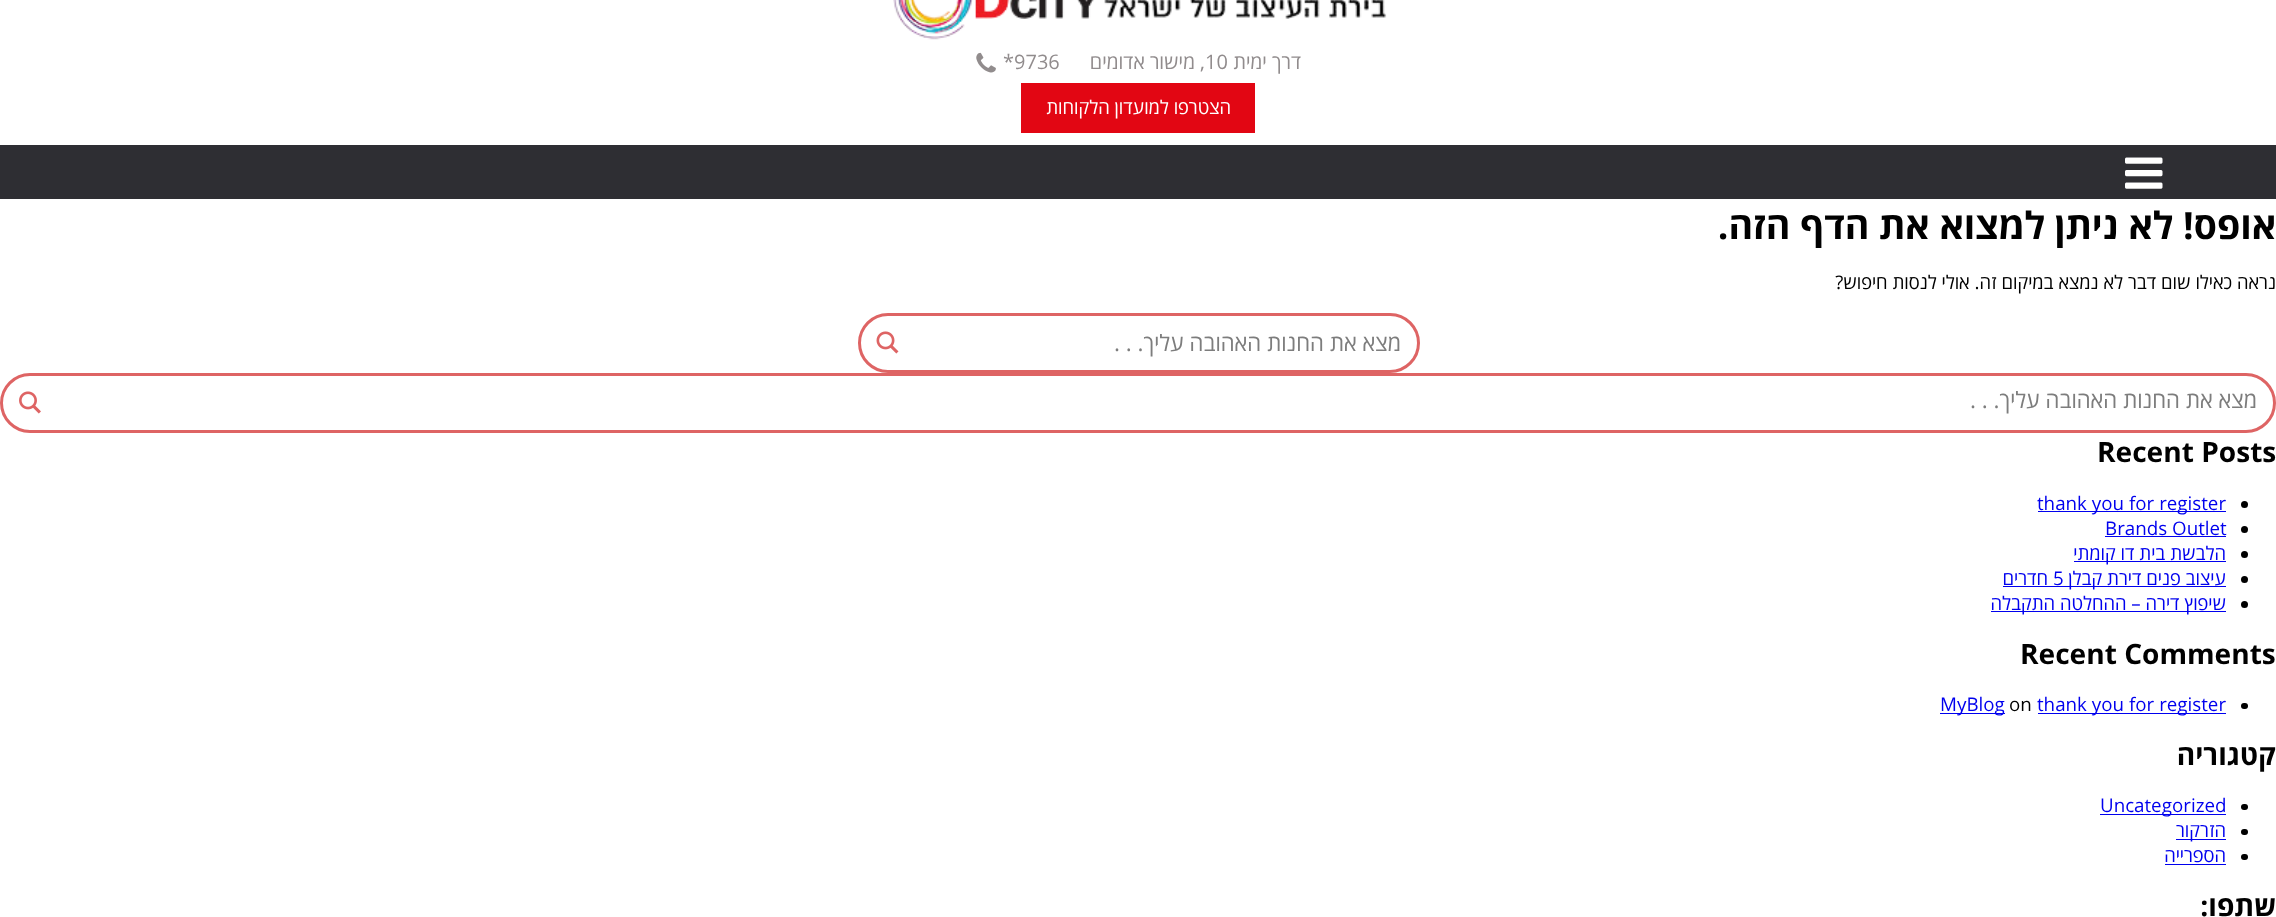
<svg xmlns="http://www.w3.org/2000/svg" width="2276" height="917">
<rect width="100%" height="100%" fill="#fff"/>
<image x="893" y="0" width="494" height="40" href="media/1.png"/>
<text x="1301" y="69" style="font-family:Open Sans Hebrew;font-size:20px;direction:rtl;fill:#918c8d">דרך ימית</text>
<text x="1205" y="69" style="font-family:Open Sans Hebrew;font-size:20px;fill:#918c8d">10</text>
<text x="1205" y="69" style="font-family:Open Sans Hebrew;font-size:20px;direction:rtl;fill:#918c8d">, מישור אדומים</text>
<text x="1003" y="69" style="font-family:Open Sans Hebrew;font-size:20px;fill:#918c8d">*9736</text>
<image x="976" y="52" width="20" height="21" href="media/2.png"/>
<rect x="1021" y="83" width="234" height="50" fill="#e20613"/>
<text x="1231" y="114" style="font-family:Open Sans Hebrew;font-size:18.75px;direction:rtl;fill:#fff">הצטרפו למועדון הלקוחות</text>
<rect y="145" width="2276" height="54" fill="#2e2e33"/>
<image x="2125" y="157" width="38" height="32" href="media/3.png"/>
<text x="2276" y="239" style="font-family:Open Sans Hebrew;font-size:37.5px;font-weight:bold;direction:rtl;fill:#000">אופס! לא ניתן למצוא את הדף הזה.</text>
<text x="2276" y="289" style="font-family:Open Sans Hebrew;font-size:18.75px;direction:rtl;fill:#000">נראה כאילו שום דבר לא נמצא במיקום זה. אולי לנסות חיפוש?</text>
<rect x="859.5" y="314.5" width="559" height="57" rx="28.5" fill="none" stroke="#de6464" stroke-width="3"/>
<text x="1401" y="351" style="font-family:Open Sans Hebrew;font-size:22.5px;direction:rtl;fill:#7d7d7d">מצא את החנות האהובה עליך. . .</text>
<image x="876" y="331" width="23" height="23" href="media/4.png"/>
<rect x="1.5" y="374.5" width="2273" height="57" rx="28.5" fill="none" stroke="#de6464" stroke-width="3"/>
<text x="2257" y="408" style="font-family:Open Sans Hebrew;font-size:22.5px;direction:rtl;fill:#7d7d7d">מצא את החנות האהובה עליך. . .</text>
<image x="19" y="391" width="22" height="23" href="media/5.png"/>
<text x="2097" y="462" style="font-family:Open Sans Hebrew;font-size:28.1px;font-weight:bold;fill:#000">Recent Posts</text>
<circle cx="2244.5" cy="504.5" r="3.5" fill="#000"/>
<rect x="2038" y="511" width="188" height="1" fill="#00e"/>
<text x="2037" y="510" style="font-family:Open Sans Hebrew;font-size:18.75px;fill:#00e">thank you for register</text>
<circle cx="2244.5" cy="529.5" r="3.5" fill="#000"/>
<text x="2105" y="535" style="font-family:Open Sans Hebrew;font-size:18.75px;fill:#00e">Brands Outlet</text>
<rect x="2105" y="536" width="121" height="1" fill="#00e"/>
<circle cx="2244.5" cy="554.5" r="3.5" fill="#000"/>
<rect x="2074" y="561" width="152" height="1" fill="#00e"/>
<text x="2226" y="560" style="font-family:Open Sans Hebrew;font-size:18.75px;direction:rtl;fill:#00e">הלבשת בית דו קומתי</text>
<circle cx="2244.5" cy="579.5" r="3.5" fill="#000"/>
<rect x="2003" y="586" width="223" height="1" fill="#00e"/>
<text x="2226" y="585" style="font-family:Open Sans Hebrew;font-size:18.75px;direction:rtl;fill:#00e">עיצוב פנים דירת קבלן</text>
<text x="2053" y="585" style="font-family:Open Sans Hebrew;font-size:18.75px;fill:#00e">5</text>
<text x="2048" y="585" style="font-family:Open Sans Hebrew;font-size:18.75px;direction:rtl;fill:#00e">חדרים</text>
<circle cx="2244.5" cy="604.5" r="3.5" fill="#000"/>
<rect x="1991" y="611" width="235" height="1" fill="#00e"/>
<text x="2226" y="610" style="font-family:Open Sans Hebrew;font-size:18.75px;direction:rtl;fill:#00e">שיפוץ דירה – ההחלטה התקבלה</text>
<text x="2020" y="664" style="font-family:Open Sans Hebrew;font-size:28.1px;font-weight:bold;fill:#000">Recent Comments</text>
<rect x="2241" y="703" width="7" height="6" rx="3" fill="#000"/>
<rect x="2038" y="713" width="188" height="1" fill="#00e"/>
<text x="2037" y="711" style="font-family:Open Sans Hebrew;font-size:18.75px;fill:#00e">thank you for register</text>
<text x="2009" y="711" style="font-family:Open Sans Hebrew;font-size:18.75px;fill:#000">on</text>
<rect x="1940" y="713" width="65" height="1" fill="#00e"/>
<text x="1940" y="711" style="font-family:Open Sans Hebrew;font-size:18.75px;fill:#00e">MyBlog</text>
<text x="2276" y="765" style="font-family:Open Sans Hebrew;font-size:28.1px;font-weight:bold;direction:rtl;fill:#000">קטגוריה</text>
<rect x="2241" y="804" width="7" height="6" rx="3" fill="#000"/>
<rect x="2100" y="814" width="126" height="1" fill="#00e"/>
<text x="2100" y="812" style="font-family:Open Sans Hebrew;font-size:18.75px;fill:#00e">Uncategorized</text>
<rect x="2241" y="829" width="7" height="6" rx="3" fill="#000"/>
<rect x="2176" y="839" width="50" height="1" fill="#00e"/>
<text x="2226" y="837" style="font-family:Open Sans Hebrew;font-size:18.75px;direction:rtl;fill:#00e">הזרקור</text>
<rect x="2241" y="854" width="7" height="6" rx="3" fill="#000"/>
<text x="2226" y="862" style="font-family:Open Sans Hebrew;font-size:18.75px;direction:rtl;fill:#00e">הספרייה</text>
<rect x="2165" y="864" width="61" height="1" fill="#00e"/>
<text x="2276" y="916" style="font-family:Open Sans Hebrew;font-size:28.1px;font-weight:bold;direction:rtl;fill:#000">שתפו:</text>
</svg>
